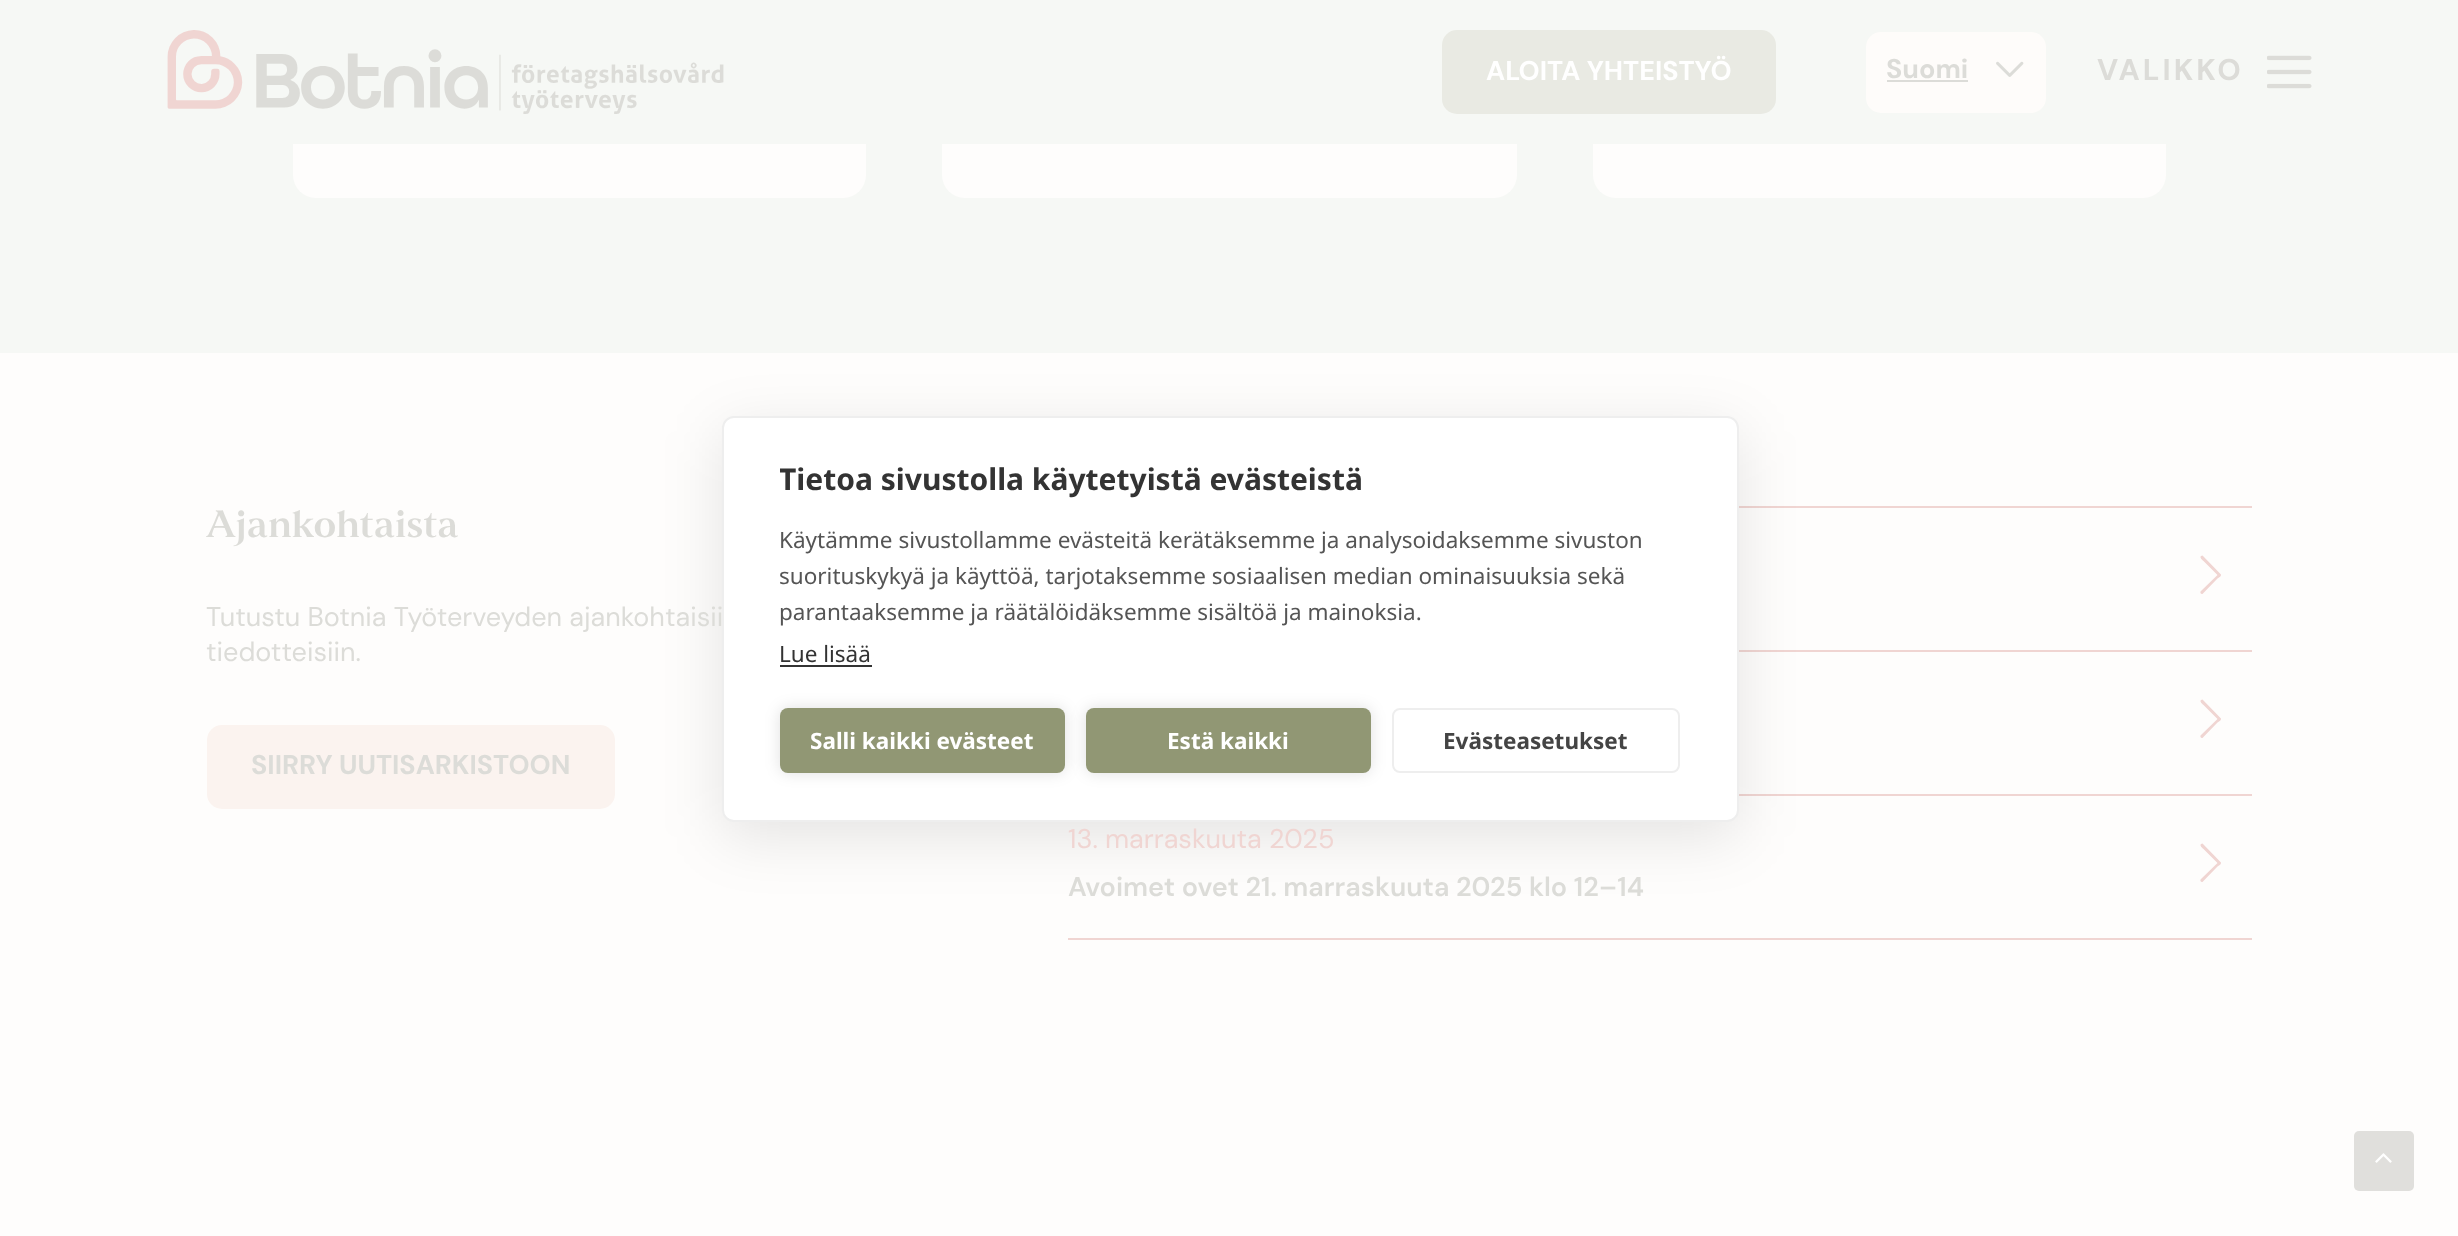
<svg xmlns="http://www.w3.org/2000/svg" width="2458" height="1236">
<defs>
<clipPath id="clip1"><rect x="780" y="465" width="900" height="243"/></clipPath>
</defs>
<rect width="100%" height="100%" fill="#fefdfc"/>
<rect y="144" width="2458" height="209" fill="#f6f8f5"/>
<rect x="293" y="-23" width="573" height="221" rx="23" fill="#fefdfc"/>
<rect x="942" y="-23" width="575" height="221" rx="23" fill="#fefdfc"/>
<rect x="1593" y="-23" width="573" height="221" rx="23" fill="#fefdfc"/>
<rect width="2458" height="144" fill="#f6f8f5"/>
<image x="167" y="30" width="557" height="84" href="media/1.png"/>
<rect x="1442" y="30" width="334" height="84" rx="15" fill="#e9eae3"/>
<text x="1486" y="80" style="font-family:DM Sans;font-size:27px;font-weight:bold;fill:#fff">ALOITA YHTEISTYÖ</text>
<rect x="1866" y="32" width="180" height="81" rx="15" fill="#fefcfa"/>
<text x="1886" y="78" style="font-family:DM Sans;font-size:27px;font-weight:bold;fill:#dcdcd8">Suomi</text>
<rect x="1887" y="80" width="81" height="2" fill="#dcdcd8"/>
<image x="1996" y="61" width="28" height="16" href="media/2.png"/>
<text x="2097" y="80" style="font-family:DM Sans;font-size:30px;font-weight:bold;letter-spacing:3px;fill:#dcdcd8">VALIKKO</text>
<image x="2267" y="55" width="45" height="34" href="media/3.png"/>
<rect x="1739" y="506" width="513" height="2" fill="#f0d5d2"/>
<rect x="1739" y="650" width="513" height="2" fill="#f0d5d2"/>
<rect x="1739" y="794" width="513" height="2" fill="#f0d5d2"/>
<rect x="722" y="431" width="1017" height="406" rx="12" fill="#0000001a" filter="blur(30px)"/>
<rect x="723" y="417" width="1015" height="404" rx="11" fill="#fff" stroke="#eee" stroke-width="2"/>
<g clip-path="url(#clip1)">
<text x="779" y="490" style="font-family:Noto Sans;font-size:30px;font-weight:bold;fill:#333">Tietoa sivustolla käytetyistä evästeistä</text>
</g>
<text x="779" y="548" style="font-family:Noto Sans;font-size:22.5px;fill:#555">Käytämme sivustollamme evästeitä kerätäksemme ja analysoidaksemme sivuston</text>
<text x="779" y="584" style="font-family:Noto Sans;font-size:22.5px;fill:#555">suorituskykyä ja käyttöä, tarjotaksemme sosiaalisen median ominaisuuksia sekä</text>
<text x="779" y="620" style="font-family:Noto Sans;font-size:22.5px;fill:#555">parantaaksemme ja räätälöidäksemme sisältöä ja mainoksia.</text>
<text x="779" y="662" style="font-family:Noto Sans;font-size:22.5px;fill:#333">Lue lisää</text>
<rect x="780" y="665" width="92" height="2" fill="#333"/>
<rect x="780" y="708" width="285" height="65" rx="8" fill="#0000001f" filter="blur(7.5px)"/>
<rect x="780" y="708" width="285" height="65" rx="8" fill="#919774"/>
<text x="810" y="749" style="font-family:Noto Sans;font-size:22.5px;font-weight:bold;fill:#fff">Salli kaikki evästeet</text>
<rect x="1086" y="708" width="285" height="65" rx="8" fill="#0000001f" filter="blur(7.5px)"/>
<rect x="1086" y="708" width="285" height="65" rx="8" fill="#919774"/>
<text x="1167" y="749" style="font-family:Noto Sans;font-size:22.5px;font-weight:bold;fill:#fff">Estä kaikki</text>
<rect x="1393" y="709" width="286" height="63" rx="7" fill="none" stroke="#eee" stroke-width="2"/>
<text x="1443" y="749" style="font-family:Noto Sans;font-size:22.5px;font-weight:bold;fill:#444">Evästeasetukset</text>
<text x="206" y="537" style="font-family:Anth;font-size:38.5px;font-weight:bold;fill:#dcdcd8">Ajankohtaista</text>
<text x="206" y="626" style="font-family:DM Sans;font-size:27px;fill:#dcdcd8">Tutustu Botnia Työterveyden ajankohtaisii</text>
<text x="206" y="661" style="font-family:DM Sans;font-size:27px;fill:#dcdcd8">tiedotteisiin.</text>
<rect x="207" y="725" width="408" height="84" rx="15" fill="#fbf3ef"/>
<text x="251" y="774" style="font-family:DM Sans;font-size:27px;font-weight:bold;fill:#dcdcd8">SIIRRY UUTISARKISTOON</text>
<path d="M2220.5 574c2 1.5-2 4-3 4.5l-15 15.5c-1.5 .5-2.5-1-2-2.5l17-16.5l-14-14c-.5-.5-4.5-3.5-2.5-5l1.5-.5z" fill="#f0d5d2"/>
<path d="M2220.5 718c2 1.5-2 4-3 4.5l-15 15.5c-1.5 .5-2.5-1-2-2.5l17-16.5l-14-14c-.5-.5-4.5-3.5-2.5-5l1.5-.5z" fill="#f0d5d2"/>
<rect x="1068" y="938" width="1184" height="2" fill="#f0d5d2"/>
<text x="1068" y="848" style="font-family:DM Sans;font-size:27px;fill:#f0d5d2">13. marraskuuta 2025</text>
<text x="1068" y="896" style="font-family:DM Sans;font-size:27px;font-weight:600;fill:#dcdcd8">Avoimet ovet 21. marraskuuta 2025 klo 12–14</text>
<path d="M2220.5 862c2 1.5-2 4-3 4.5l-15 15.5c-1.5 .5-2.5-1-2-2.5l17-16.5l-14-14c-.5-.5-4.5-3.5-2.5-5l1.5-.5z" fill="#f0d5d2"/>
<rect x="2354" y="1131" width="60" height="60" rx="5" fill="#e0dfdc"/>
<image x="2375" y="1153" width="17" height="10" href="media/4.png"/>
</svg>
